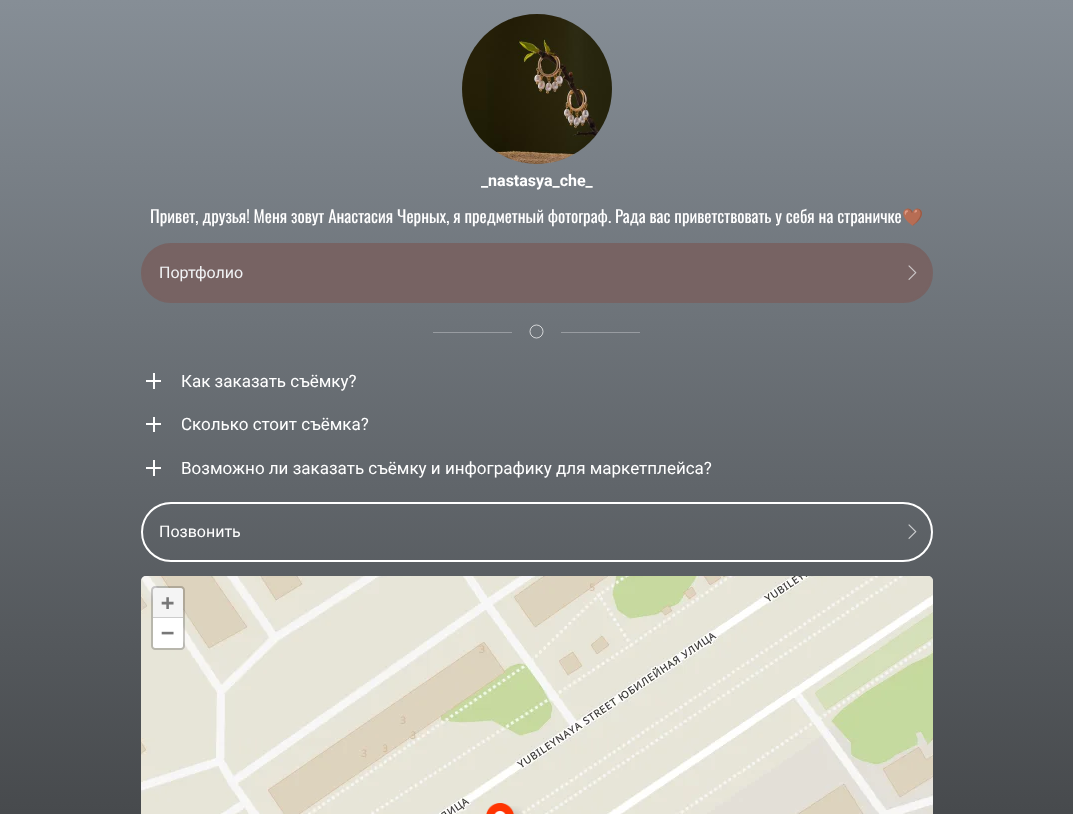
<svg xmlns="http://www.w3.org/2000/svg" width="1073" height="814">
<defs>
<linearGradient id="g1" gradientUnits="userSpaceOnUse" x1="536" y1="0" x2="537" y2="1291"><stop offset="0" stop-color="#868e96"/><stop offset="1" stop-color="#222"/></linearGradient>
</defs>
<rect width="100%" height="100%" fill="#fff"/>
<rect width="1073" height="814" fill="url(#g1)"/>
<image x="462" y="14" width="150" height="150" href="media/1.png"/>
<text x="481" y="186" style="font-family:Roboto;font-size:16px;font-weight:bold;fill:#fff">_nastasya_che_</text>
<text x="150" y="223" style="font-family:Oswald;font-size:17px;fill:#fff">Привет, друзья! Меня зовут Анастасия Черных, я предметный фотограф. Рада вас приветствовать у себя на страничке</text>
<text x="902" y="223" style="font-family:Noto Color Emoji;font-size:17px;fill:#fff">🤎</text>
<rect x="142" y="244" width="790" height="58" rx="29" fill="#776363" stroke="#776363" stroke-width="2"/>
<text x="159" y="278" style="font-family:Roboto;font-size:16px;fill:#f1f3f5">Портфолио</text>
<image x="908" y="265" width="9" height="15" href="media/2.png"/>
<rect x="433" y="332" width="79" height="1" fill="#989ca1"/>
<circle cx="536.5" cy="331.5" r="6.5" fill="none" stroke="#fff" stroke-width="0.7"/>
<rect x="561" y="332" width="79" height="1" fill="#989ca1"/>
<rect x="153" y="373" width="2" height="16" fill="#fff"/>
<rect x="146" y="380" width="15" height="2" fill="#fff"/>
<text x="181" y="387" style="font-family:Roboto;font-size:17px;fill:#fff">Как заказать съёмку?</text>
<rect x="153" y="417" width="2" height="15" fill="#fff"/>
<rect x="146" y="423" width="15" height="2" fill="#fff"/>
<text x="181" y="430" style="font-family:Roboto;font-size:17px;fill:#fff">Сколько стоит съёмка?</text>
<rect x="153" y="460" width="2" height="16" fill="#fff"/>
<rect x="146" y="467" width="15" height="2" fill="#fff"/>
<text x="181" y="474" style="font-family:Roboto;font-size:17px;fill:#fff">Возможно ли заказать съёмку и инфографику для маркетплейса?</text>
<rect x="142" y="503" width="790" height="58" rx="29" fill="none" stroke="#fff" stroke-width="2"/>
<text x="159" y="537" style="font-family:Roboto;font-size:16px;fill:#fff">Позвонить</text>
<image x="908" y="524" width="9" height="15" href="media/3.png"/>
<path d="M146 576h782c3 0 5 2 5 5v233h-792v-233c0-3 2-5 5-5z" fill="#ddd"/>
<image x="141" y="576" width="30" height="162" href="media/4.png"/>
<image x="171" y="576" width="256" height="162" href="media/5.png"/>
<image x="427" y="576" width="256" height="162" href="media/6.png"/>
<image x="683" y="576" width="250" height="162" href="media/7.png"/>
<image x="141" y="738" width="30" height="76" href="media/8.png"/>
<image x="171" y="738" width="256" height="76" href="media/9.png"/>
<image x="427" y="738" width="256" height="76" href="media/10.png"/>
<image x="683" y="738" width="250" height="76" href="media/11.png"/>
<image x="502" y="806" width="22" height="8" href="media/13.png"/>
<image x="486" y="803" width="28" height="11" href="media/12.png"/>
<path d="M155 586h26c2 0 4 2 4 4v56c0 2-2 4-4 4h-26c-2 0-4-2-4-4v-56c0-2 2-4 4-4z" fill="#00000033"/>
<path d="M155 588h26c1 0 2 1 2 2v28h-30v-28c0-1 1-2 2-2z" fill="#f4f4f4"/>
<rect x="153" y="617" width="30" height="1" fill="#ccc"/>
<text x="161" y="610" style="font-family:DejaVu Sans Mono;font-size:22px;font-weight:bold;fill:#777">+</text>
<path d="M153 618h30v28c0 1-1 2-2 2h-26c-1 0-2-1-2-2z" fill="#fff"/>
<text x="161" y="640" style="font-family:DejaVu Sans Mono;font-size:22px;font-weight:bold;fill:#777">−</text>
</svg>
